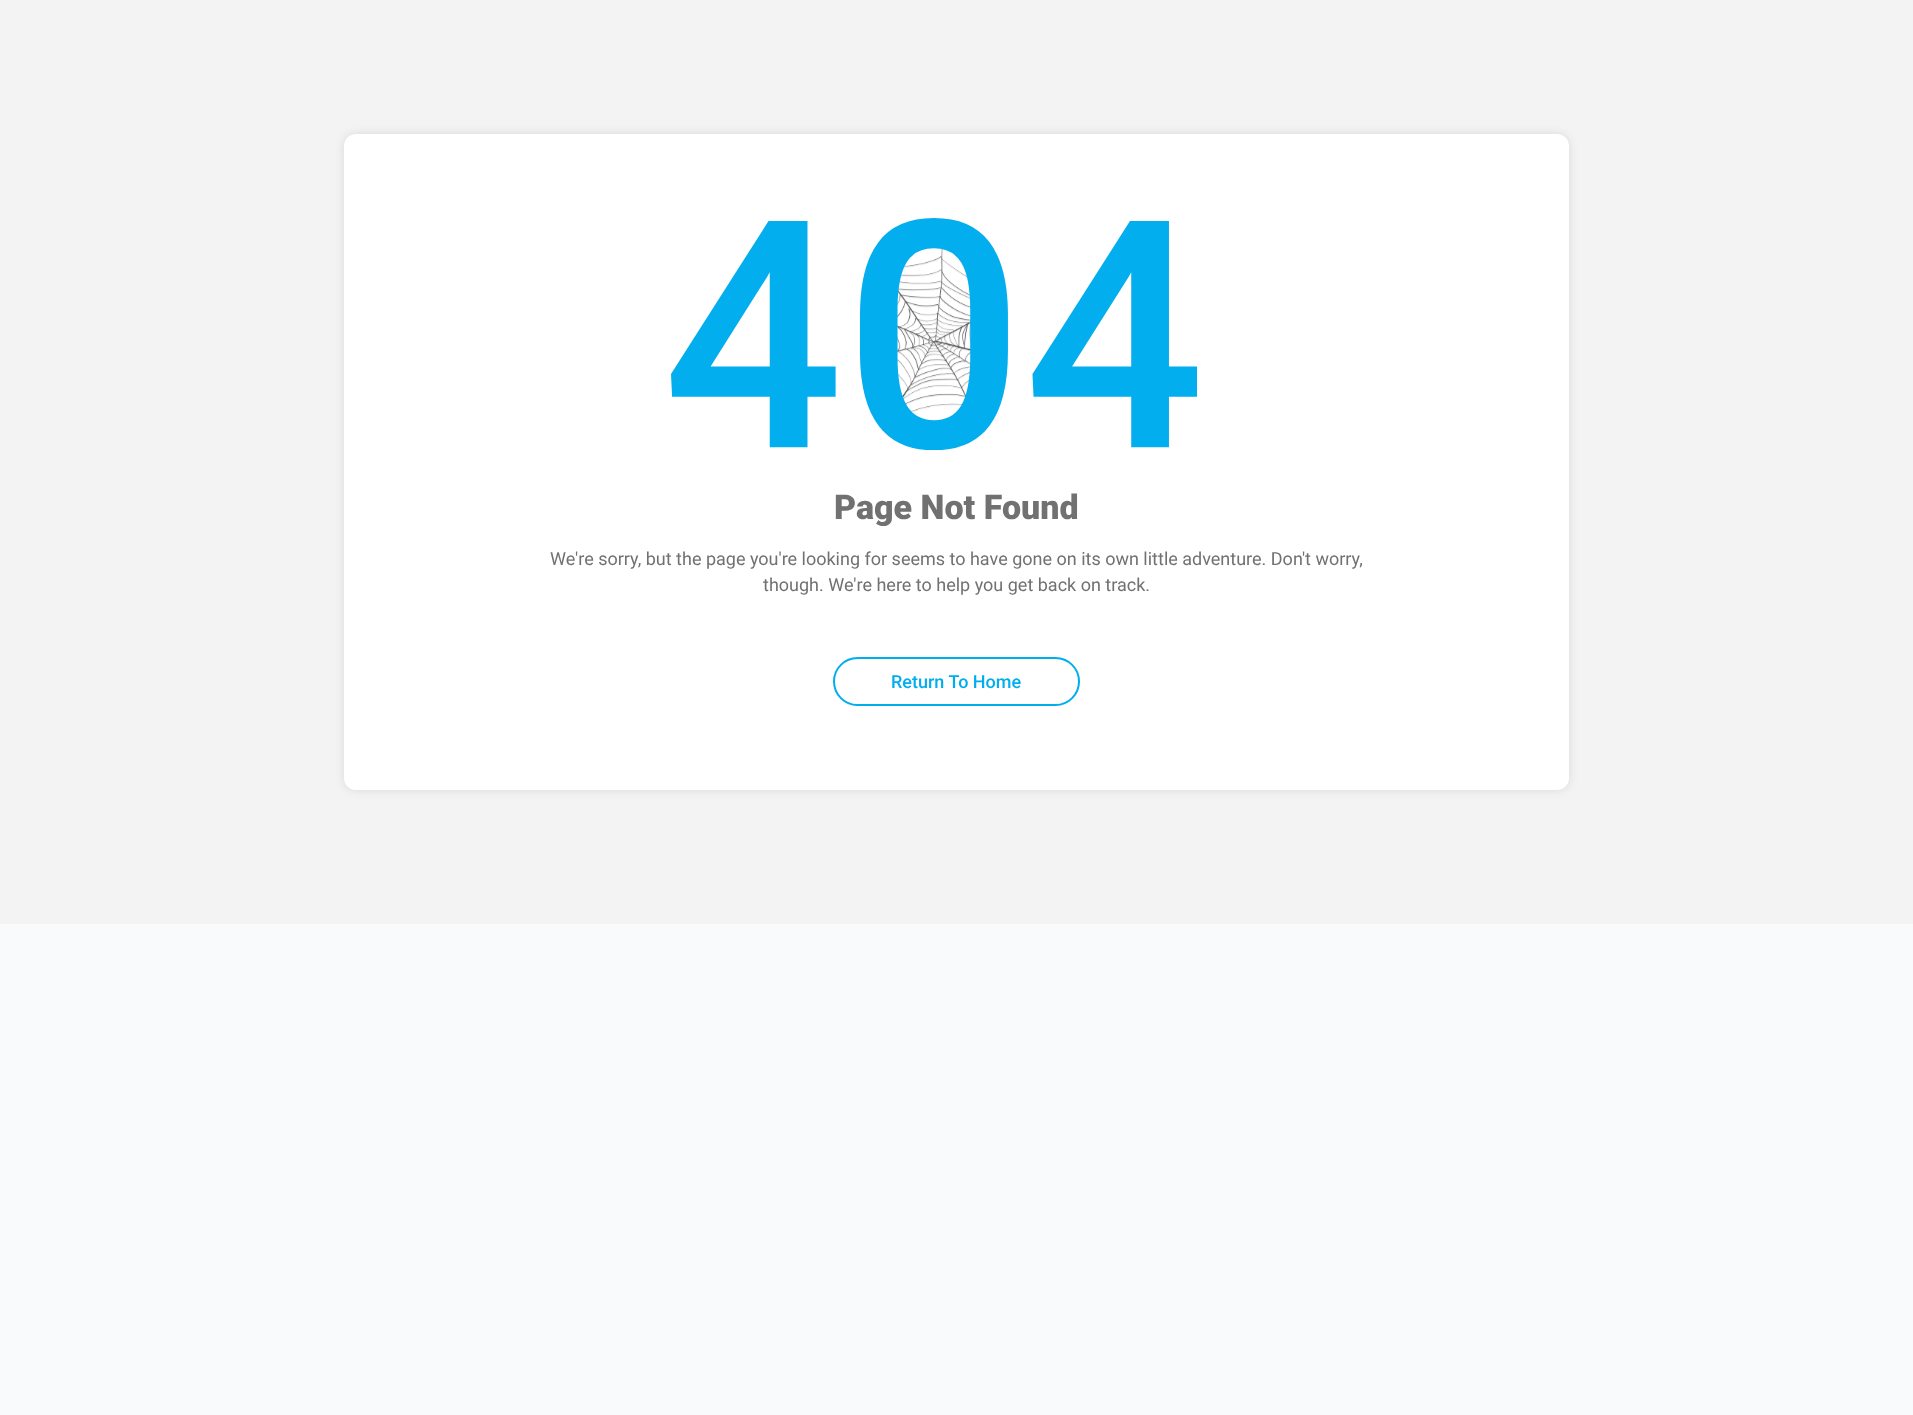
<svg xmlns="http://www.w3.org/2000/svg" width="1913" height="1415">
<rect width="100%" height="100%" fill="#f9fafb"/>
<rect width="1913" height="924" fill="#f3f3f3"/>
<rect x="344" y="134" width="1225" height="656" rx="12" fill="#0000001a" filter="blur(5px)"/>
<rect x="344" y="134" width="1225" height="656" rx="12" fill="#fff"/>
<image x="671" y="218" width="526" height="232" href="media/1.png"/>
<text x="834" y="519" style="font-family:Roboto;font-size:34px;font-weight:900;fill:#717171">Page Not Found</text>
<text x="550" y="565" style="font-family:Roboto;font-size:18px;fill:#717171">We're sorry, but the page you're looking for seems to have gone on its own little adventure. Don't worry,</text>
<text x="763" y="591" style="font-family:Roboto;font-size:18px;fill:#717171">though. We're here to help you get back on track.</text>
<rect x="834" y="658" width="245" height="47" rx="23.5" fill="none" stroke="#00aeee" stroke-width="2"/>
<text x="891" y="688" style="font-family:Roboto;font-size:18px;font-weight:500;fill:#00aeee">Return To Home</text>
</svg>
